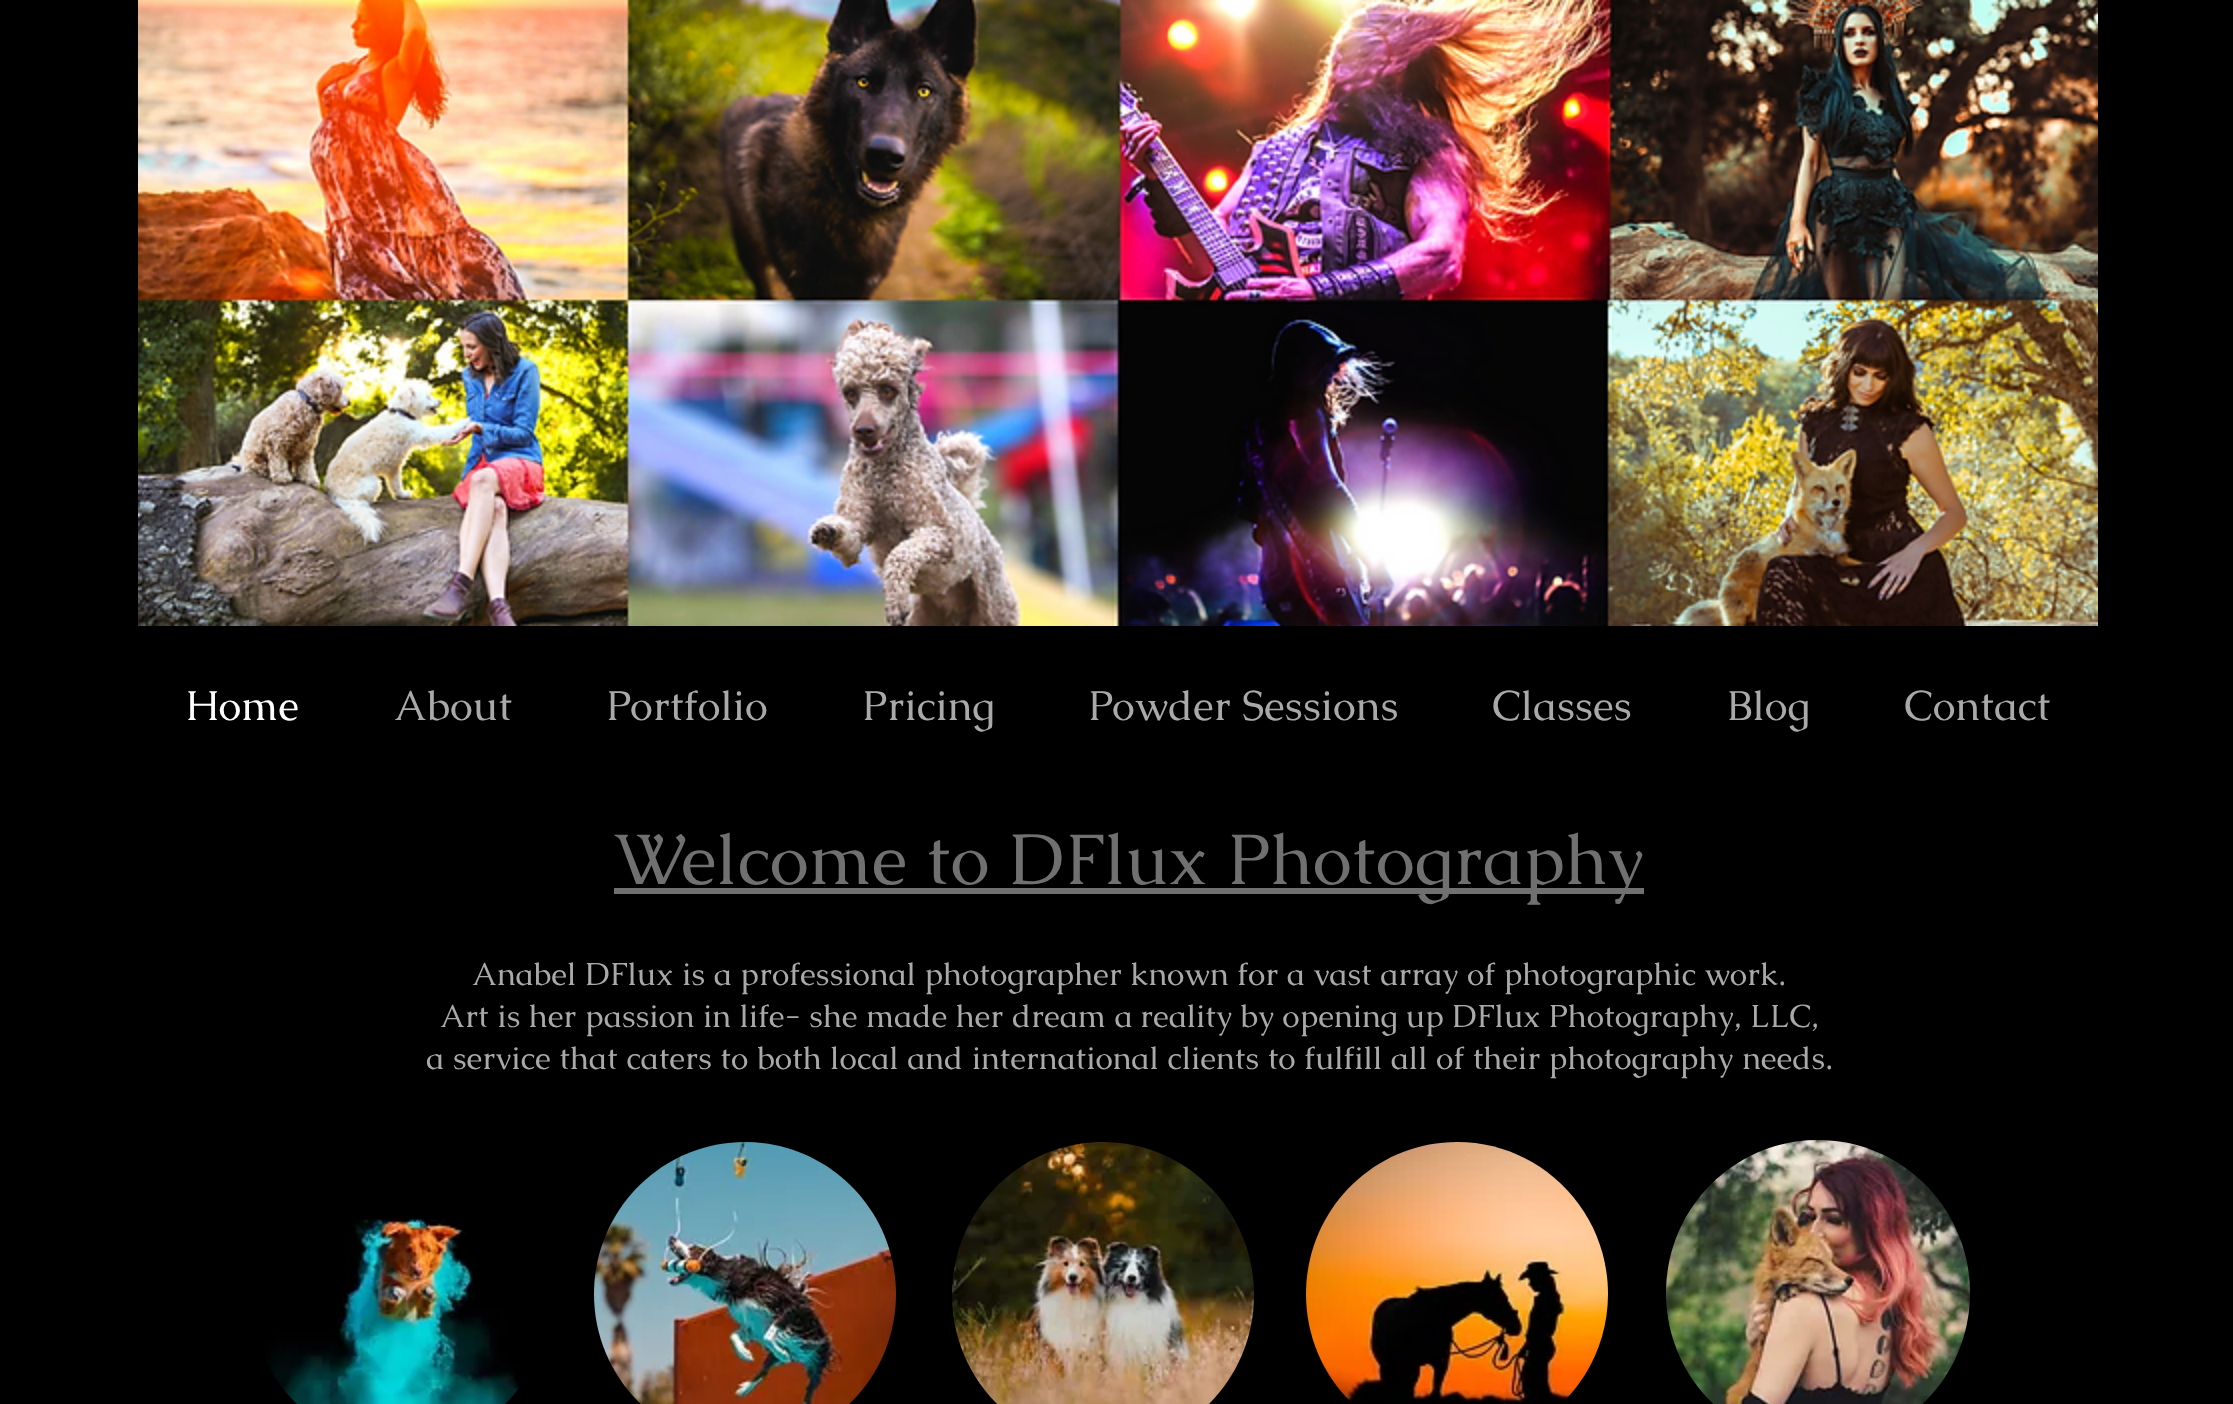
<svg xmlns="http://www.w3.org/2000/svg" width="2233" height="1404">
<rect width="100%" height="100%" fill="#000"/>
<image x="138" y="0" width="1960" height="626" href="media/1.png"/>
<text x="185" y="720" style="font-family:Caudex;font-size:42px;fill:#fff">Home</text>
<text x="394" y="720" style="font-family:Caudex;font-size:42px;fill:#a9a9a9">About</text>
<text x="606" y="720" style="font-family:Caudex;font-size:42px;fill:#a9a9a9">Portfolio</text>
<text x="862" y="720" style="font-family:Caudex;font-size:42px;fill:#a9a9a9">Pricing</text>
<text x="1088" y="720" style="font-family:Caudex;font-size:42px;fill:#a9a9a9">Powder Sessions</text>
<text x="1492" y="720" style="font-family:Caudex;font-size:42px;fill:#a9a9a9">Classes</text>
<text x="1727" y="720" style="font-family:Caudex;font-size:42px;fill:#a9a9a9">Blog</text>
<text x="1904" y="720" style="font-family:Caudex;font-size:42px;fill:#a9a9a9">Contact</text>
<rect x="614" y="888" width="1030" height="6" fill="#717070"/>
<text x="614" y="884" style="font-family:Caudex;font-size:72px;fill:#717070">Welcome to DFlux Photography</text>
<text x="472" y="985" style="font-family:Caudex;font-size:32px;fill:#a9a9a9">Anabel DFlux is a professional photographer known for a vast array of photographic work.</text>
<text x="440" y="1027" style="font-family:Caudex;font-size:32px;fill:#a9a9a9">Art is her passion in life- she made her dream a</text>
<text x="1140" y="1027" word-spacing="-0.5" style="font-family:Caudex;font-size:32px;fill:#a9a9a9">reality by opening up DFlux Photography</text>
<text x="1734" y="1027" style="font-family:Caudex;font-size:32px;fill:#a9a9a9">, LLC,</text>
<text x="426" y="1069" style="font-family:Caudex;font-size:32px;fill:#a9a9a9">a service that caters to both local and international clients to fulfill all of their photography needs.</text>
<image x="266" y="1218" width="254" height="186" href="media/2.png"/>
<image x="594" y="1142" width="302" height="262" href="media/3.png"/>
<image x="952" y="1142" width="302" height="262" href="media/4.png"/>
<image x="1306" y="1142" width="302" height="262" href="media/5.png"/>
<image x="1666" y="1140" width="304" height="264" href="media/6.png"/>
</svg>
